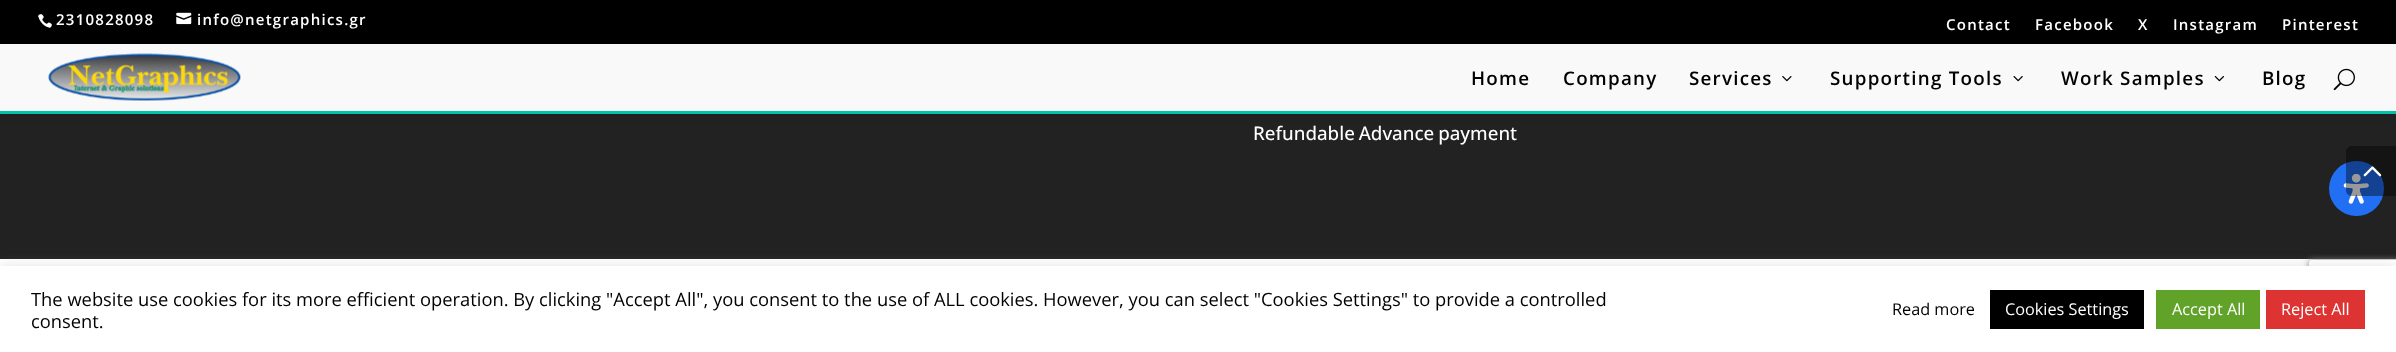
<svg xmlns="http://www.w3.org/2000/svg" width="2396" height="352">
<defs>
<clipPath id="clip1"><path d="M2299 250h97v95h-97zm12.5 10h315c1.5 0 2.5 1 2.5 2.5v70c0 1.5-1 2.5-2.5 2.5h-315c-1.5 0-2.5-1-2.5-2.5v-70c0-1.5 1-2.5 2.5-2.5z" clip-rule="evenodd"/></clipPath>
</defs>
<rect width="100%" height="100%" fill="#fff"/>
<rect y="114" width="2396" height="145" fill="#222"/>
<rect y="44" width="2396" height="70" fill="#0000001a" filter="blur(4.5px)"/>
<rect width="2396" height="44" fill="#000"/>
<image x="38" y="14" width="14" height="14" href="media/1.png"/>
<text x="56" y="25" style="font-family:Open Sans;font-size:15px;font-weight:600;letter-spacing:1.25px;fill:#fff">2310828098</text>
<image x="176" y="12" width="16" height="13" href="media/2.png"/>
<text x="197" y="25" style="font-family:Open Sans;font-size:15px;font-weight:600;letter-spacing:1.25px;fill:#fff">info@netgraphics.gr</text>
<text x="1946" y="30" style="font-family:Open Sans;font-size:15px;font-weight:600;letter-spacing:1.25px;fill:#fff">Contact</text>
<text x="2035" y="30" style="font-family:Open Sans;font-size:15px;font-weight:600;letter-spacing:1.25px;fill:#fff">Facebook</text>
<text x="2138" y="30" style="font-family:Open Sans;font-size:15px;font-weight:600;letter-spacing:1.25px;fill:#fff">X</text>
<text x="2173" y="30" style="font-family:Open Sans;font-size:15px;font-weight:600;letter-spacing:1.25px;fill:#fff">Instagram</text>
<text x="2282" y="30" style="font-family:Open Sans;font-size:15px;font-weight:600;letter-spacing:1.25px;fill:#fff">Pinterest</text>
<rect y="44" width="2396" height="67" fill="#f9f9f9"/>
<rect y="111" width="2396" height="3" fill="#00c3aa"/>
<image x="48" y="53" width="193" height="48" href="media/3.png"/>
<text x="1471" y="85" style="font-family:Open Sans;font-size:18.75px;font-weight:600;letter-spacing:1.25px;fill:#000">Home</text>
<text x="1563" y="85" style="font-family:Open Sans;font-size:18.75px;font-weight:600;letter-spacing:1.25px;fill:#000">Company</text>
<text x="1689" y="85" style="font-family:Open Sans;font-size:18.75px;font-weight:600;letter-spacing:1.25px;fill:#000">Services</text>
<image x="1782" y="76" width="10" height="6" href="media/4.png"/>
<text x="1830" y="85" style="font-family:Open Sans;font-size:18.75px;font-weight:600;letter-spacing:1.25px;fill:#000">Supporting Tools</text>
<image x="2013" y="76" width="10" height="6" href="media/5.png"/>
<text x="2061" y="85" style="font-family:Open Sans;font-size:18.75px;font-weight:600;letter-spacing:1.25px;fill:#000">Work Samples</text>
<image x="2214" y="76" width="10" height="6" href="media/6.png"/>
<text x="2262" y="85" style="font-family:Open Sans;font-size:18.75px;font-weight:600;letter-spacing:1.25px;fill:#000">Blog</text>
<image x="2333" y="68" width="22" height="23" href="media/7.png"/>
<text x="1253" y="140" word-spacing="-1" style="font-family:Open Sans;font-size:18.75px;font-weight:500;fill:#fff">Refundable Advance payment</text>
<circle cx="2356.5" cy="188.5" r="27.5" fill="#216ff3"/>
<image x="2343" y="174" width="26" height="30" href="media/9.png"/>
<path d="M2352 146h44v50h-44c-3.5 0-6-2.5-6-6v-38c0-3.5 2.5-6 6-6z" fill="#00000066"/>
<image x="2363" y="166" width="19" height="11" href="media/8.png"/>
<g clip-path="url(#clip1)">
<rect x="2309" y="260" width="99" height="75" rx="2.5" fill="#808080" filter="blur(3px)"/>
</g>
<rect y="265" width="2396" height="86" fill="#acabab4d" filter="blur(6px)"/>
<rect y="266" width="2396" height="86" fill="#fff"/>
<text x="31" y="306" style="font-family:Open Sans;font-size:18.33px;fill:#000">The website use cookies for its more efficient operation. By clicking "Accept All", you consent to the use of ALL cookies. However, you can select "Cookies Settings" to provide a controlled</text>
<text x="31" y="328" style="font-family:Open Sans;font-size:18.33px;fill:#000">consent.</text>
<text x="1892" y="315" style="font-family:Open Sans;font-size:16.25px;fill:#000">Read more</text>
<rect x="1990" y="290" width="154" height="39" fill="#000"/>
<text x="2005" y="315" style="font-family:Open Sans;font-size:16.25px;fill:#fff">Cookies Settings</text>
<rect x="2156" y="290" width="104" height="39" fill="#61a229"/>
<text x="2172" y="315" style="font-family:Open Sans;font-size:16.25px;fill:#fff">Accept All</text>
<rect x="2266" y="290" width="99" height="39" fill="#d33"/>
<text x="2281" y="315" style="font-family:Open Sans;font-size:16.25px;fill:#fff">Reject All</text>
</svg>
